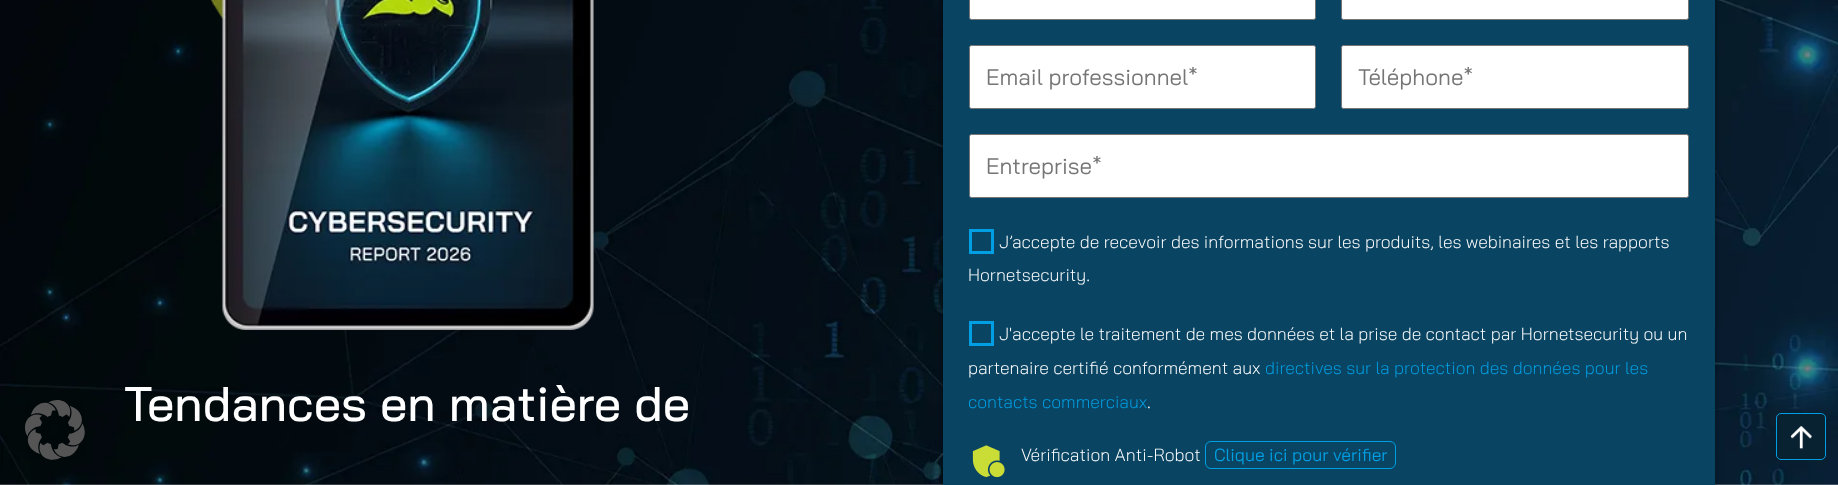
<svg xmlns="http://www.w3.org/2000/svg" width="1838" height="485">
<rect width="100%" height="100%" fill="#fff"/>
<image x="0" y="0" width="1838" height="485" href="media/2.png"/>
<image x="25" y="400" width="60" height="60" href="media/1.png"/>
<image x="211" y="0" width="383" height="330" href="media/3.png"/>
<text x="124" y="421" style="font-family:Bai Jamjuree;font-size:48.75px;font-weight:500;fill:#fff">Tendances en matière de</text>
<rect x="943" y="-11" width="772" height="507" rx="5" fill="#00000021" filter="blur(2px)"/>
<rect x="943" y="-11" width="772" height="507" rx="5" fill="#0000001c" filter="blur(2px)"/>
<rect x="943" width="772" height="485" fill="#094462"/>
<rect x="969.5" y="-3.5" width="346" height="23" rx="2" fill="#fff" stroke="#767676"/>
<rect x="1341.5" y="-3.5" width="347" height="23" rx="2" fill="#fff" stroke="#767676"/>
<rect x="969.5" y="45.5" width="346" height="63" rx="2" fill="#fff" stroke="#767676"/>
<text x="986" y="85" style="font-family:Bai Jamjuree;font-size:22.5px;fill:#757575">Email professionnel*</text>
<rect x="1341.5" y="45.5" width="347" height="63" rx="2" fill="#fff" stroke="#767676"/>
<text x="1358" y="85" style="font-family:Bai Jamjuree;font-size:22.5px;fill:#757575">Téléphone*</text>
<rect x="969.5" y="134.5" width="719" height="63" rx="2" fill="#fff" stroke="#767676"/>
<text x="986" y="174" style="font-family:Bai Jamjuree;font-size:22.5px;fill:#757575">Entreprise*</text>
<rect x="970.5" y="230.5" width="22" height="22" fill="none" stroke="#009fe3" stroke-width="3"/>
<text x="999" y="248" style="font-family:Bai Jamjuree;font-size:17.5px;font-weight:300;fill:#fff">J’accepte de recevoir des informations sur les produits, les webinaires et les rapports</text>
<text x="968" y="281" style="font-family:Bai Jamjuree;font-size:17.5px;font-weight:300;fill:#fff">Hornetsecurity.</text>
<rect x="970.5" y="322.5" width="22" height="22" fill="none" stroke="#009fe3" stroke-width="3"/>
<text x="999" y="340" style="font-family:Bai Jamjuree;font-size:17.5px;font-weight:300;fill:#fff">J'accepte le traitement de mes données et la prise de contact par Hornetsecurity ou un</text>
<text x="968" y="374" style="font-family:Bai Jamjuree;font-size:17.5px;font-weight:300;fill:#fff">partenaire certifié conformément aux</text>
<text x="1265" y="374" style="font-family:Bai Jamjuree;font-size:17.5px;font-weight:300;fill:#009fe3">directives sur la protection des données pour les</text>
<text x="968" y="408" style="font-family:Bai Jamjuree;font-size:17.5px;font-weight:300;fill:#009fe3">contacts commerciaux</text>
<text x="1147" y="408" style="font-family:Bai Jamjuree;font-size:17.5px;font-weight:300;fill:#fff">.</text>
<image x="972" y="445" width="33" height="33" href="media/4.png"/>
<text x="1021" y="461" style="font-family:Bai Jamjuree;font-size:17.5px;font-weight:300;fill:#fff">Vérification Anti-Robot</text>
<rect x="1205.5" y="441.5" width="190" height="27" rx="5.5" fill="none" stroke="#009fe3"/>
<text x="1214" y="461" style="font-family:Bai Jamjuree;font-size:17.5px;fill:#009fe3">Clique ici pour vérifier</text>
<rect x="1776.5" y="413.5" width="49" height="46" rx="4.5" fill="#092231" stroke="#009fe3"/>
<image x="1790" y="426" width="22" height="24" href="media/5.png"/>
</svg>
